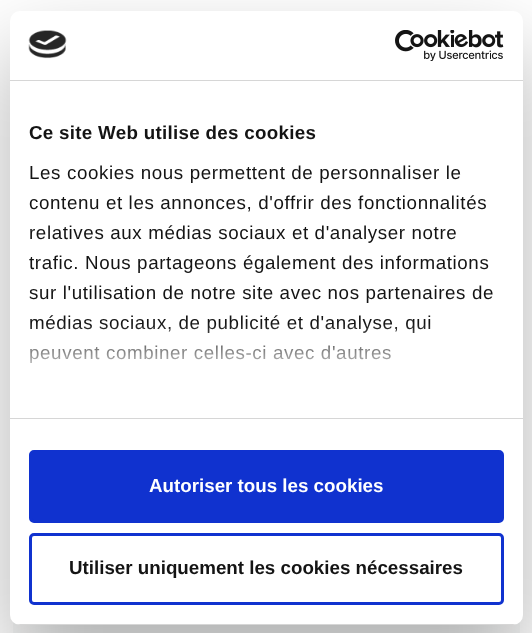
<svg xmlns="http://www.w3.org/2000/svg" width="532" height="633">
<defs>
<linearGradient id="g1" gradientUnits="userSpaceOnUse" x1="258" y1="417" x2="258" y2="323"><stop offset="0" stop-color="#fff"/><stop offset="0.5" stop-color="#fff" stop-opacity="0.8"/><stop offset="1" stop-color="#fff" stop-opacity="0"/></linearGradient>
<clipPath id="clip1"><rect x="10" y="11" width="513" height="614" rx="10"/></clipPath>
</defs>
<rect width="100%" height="100%" fill="#fff"/>
<rect x="13" y="622" width="507" height="11" fill="#f9fafa"/>
<rect x="10" y="51" width="513" height="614" rx="10" fill="#0000004d" filter="blur(42.5px)"/>
<rect x="10" y="11" width="513" height="614" rx="10" fill="#fff"/>
<rect x="10" y="80" width="513" height="1" fill="#d6d6d6"/>
<image x="28" y="30" width="39" height="29" href="media/1.png"/>
<image x="395" y="30" width="109" height="31" href="media/2.png"/>
<rect x="10" y="418" width="513" height="1" fill="#d6d6d6"/>
<text x="29" y="139" style="font-family:Liberation Sans;font-size:18.75px;font-weight:bold;letter-spacing:0.3px;fill:#141414">Ce site Web utilise des cookies</text>
<text x="29" y="179" style="font-family:Liberation Sans;font-size:18.75px;letter-spacing:0.62px;fill:#141414">Les cookies nous permettent de personnaliser le</text>
<text x="29" y="209" style="font-family:Liberation Sans;font-size:18.75px;letter-spacing:0.62px;fill:#141414">contenu et les annonces, d'offrir des fonctionnalités</text>
<text x="29" y="239" style="font-family:Liberation Sans;font-size:18.75px;letter-spacing:0.62px;fill:#141414">relatives aux médias sociaux et d'analyser notre</text>
<text x="29" y="269" style="font-family:Liberation Sans;font-size:18.75px;letter-spacing:0.62px;fill:#141414">trafic. Nous partageons également des informations</text>
<text x="29" y="299" style="font-family:Liberation Sans;font-size:18.75px;letter-spacing:0.62px;fill:#141414">sur l'utilisation de notre site avec nos partenaires de</text>
<text x="29" y="329" style="font-family:Liberation Sans;font-size:18.75px;letter-spacing:0.62px;fill:#141414">médias sociaux, de publicité et d'analyse, qui</text>
<text x="29" y="359" style="font-family:Liberation Sans;font-size:18.75px;letter-spacing:0.62px;fill:#141414">peuvent combiner celles-ci avec d'autres</text>
<rect x="29" y="324" width="402" height="39" fill="url(#g1)"/>
<g clip-path="url(#clip1)">
<rect x="10" y="624" width="513" height="1" fill="#d6d6d6"/>
</g>
<rect x="30.5" y="451.5" width="472" height="70" rx="3.5" fill="#1032cf" stroke="#1032cf" stroke-width="3"/>
<text x="149" y="492" style="font-family:Liberation Sans;font-size:18.75px;font-weight:bold;fill:#fff">Autoriser tous les cookies</text>
<rect x="30.5" y="534.5" width="472" height="69" rx="3.5" fill="none" stroke="#1032cf" stroke-width="3"/>
<text x="69" y="574" style="font-family:Liberation Sans;font-size:18.75px;font-weight:bold;fill:#141414">Utiliser uniquement les cookies nécessaires</text>
</svg>
